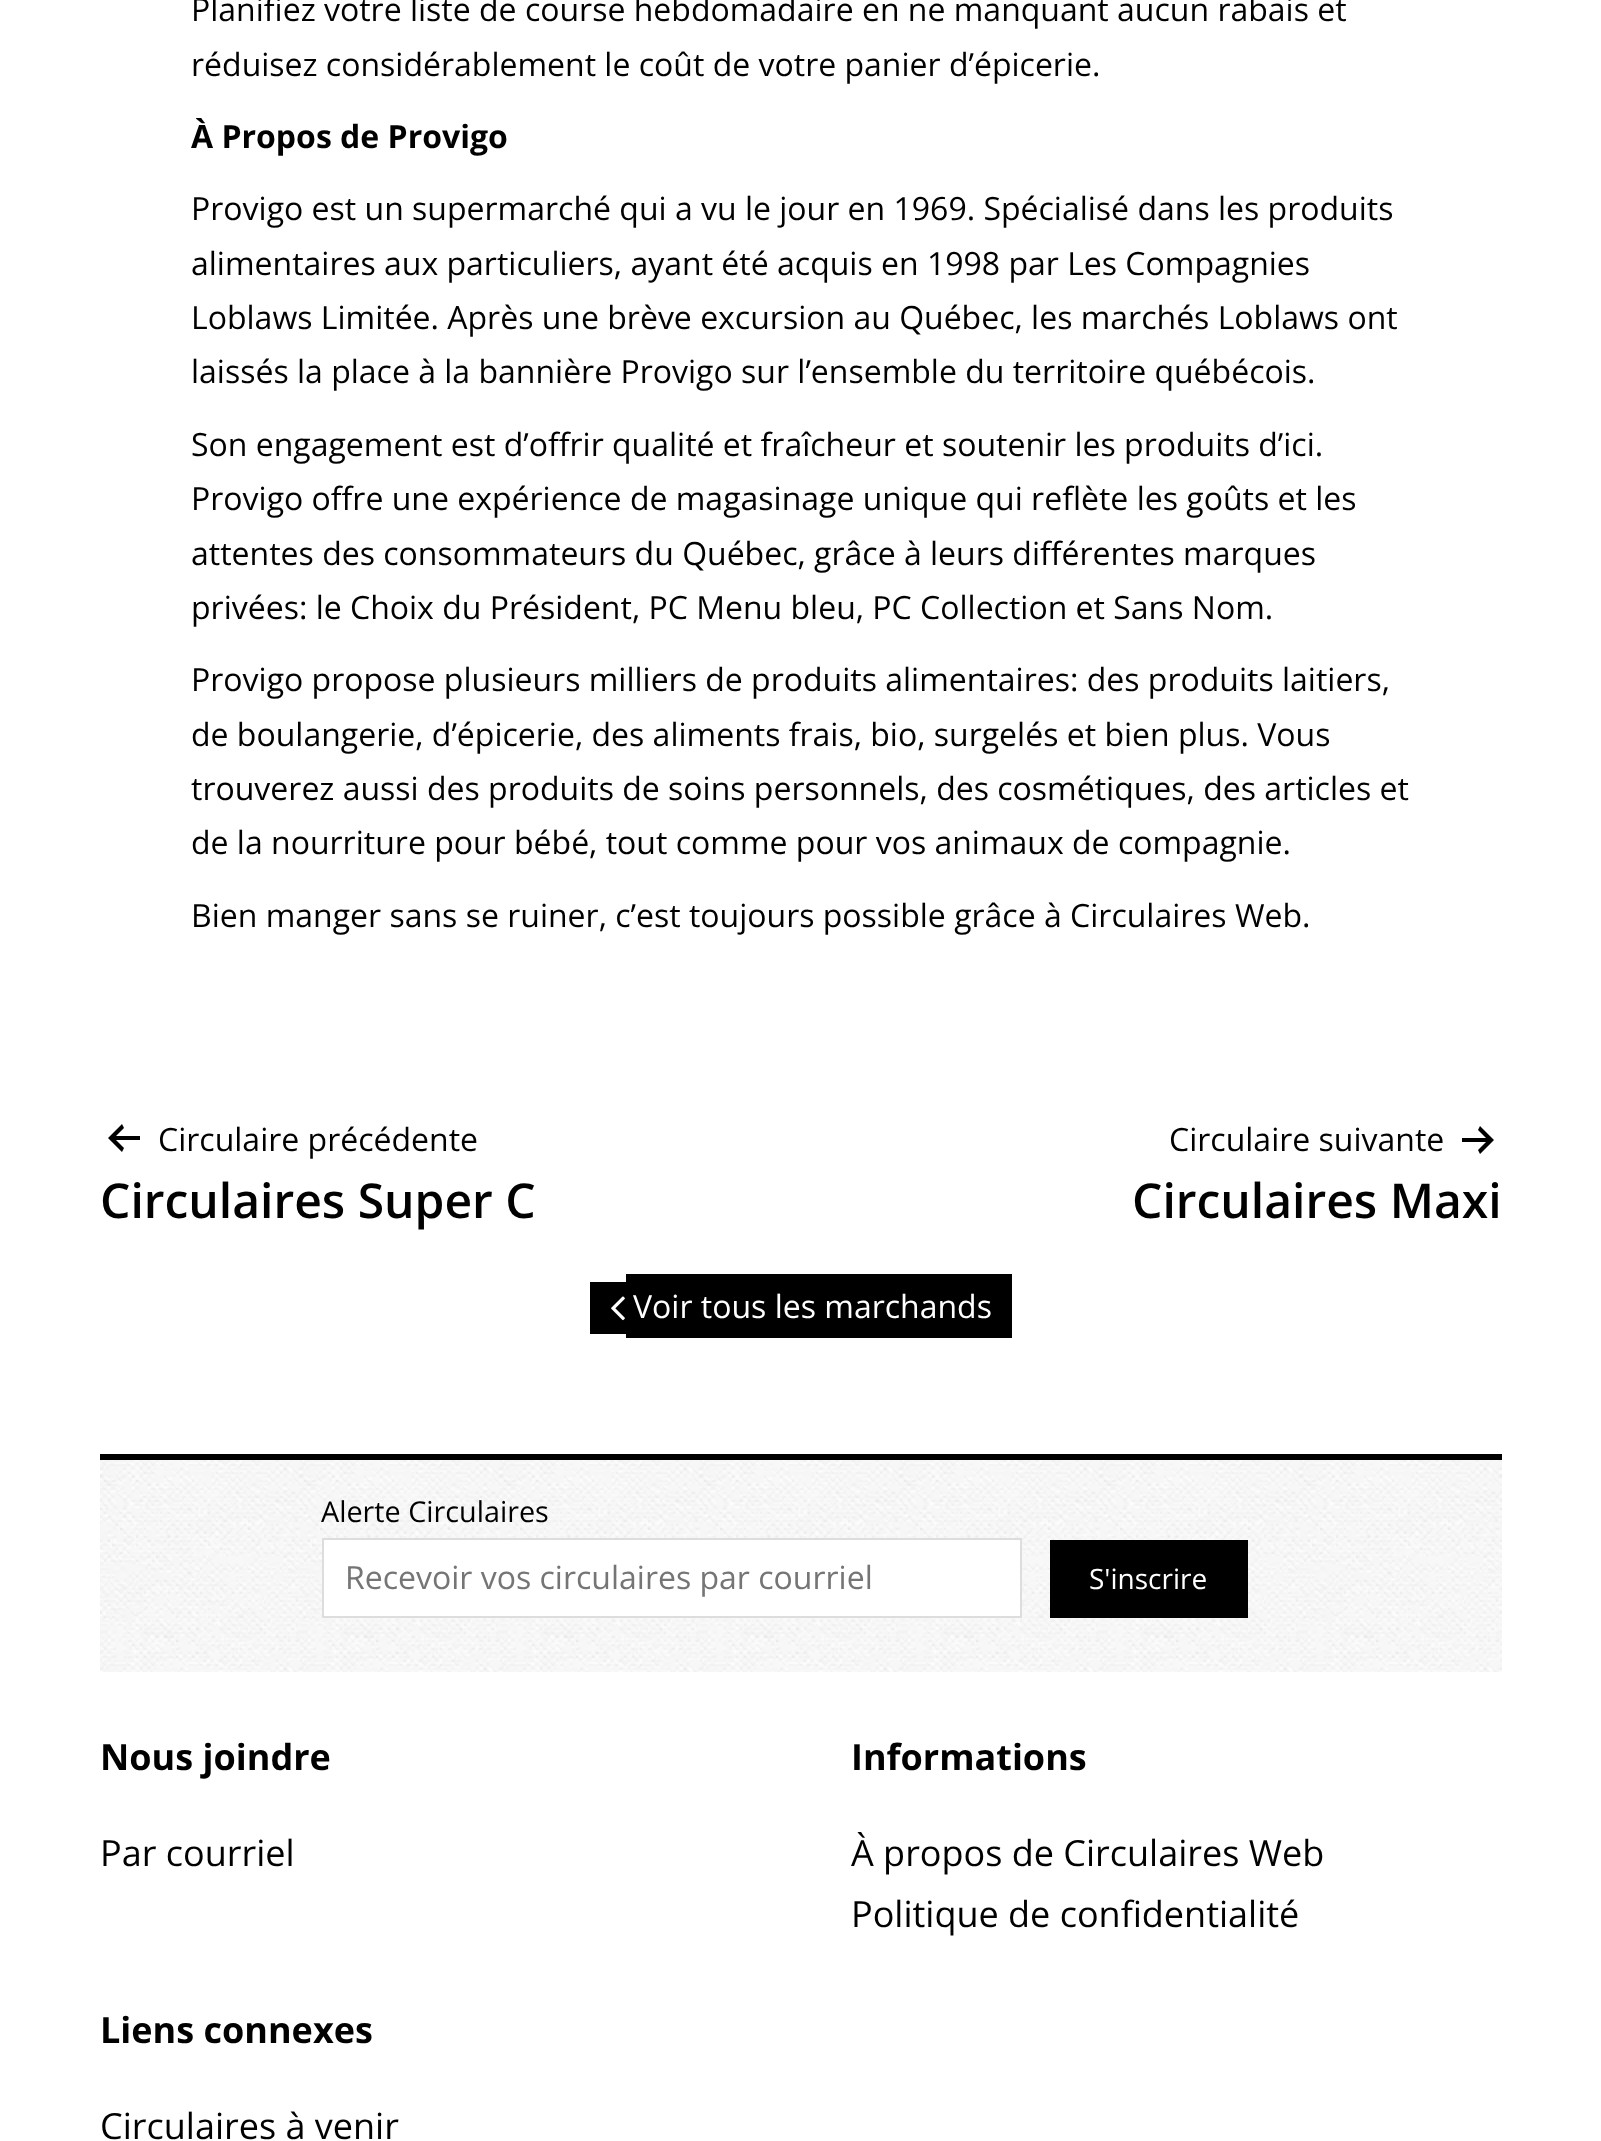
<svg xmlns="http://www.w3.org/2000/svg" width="1601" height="2141">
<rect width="100%" height="100%" fill="#fff"/>
<text x="191" y="21" style="font-family:Open Sans;font-size:32px;fill:#000">Planifiez votre liste de course hebdomadaire en ne manquant aucun rabais et</text>
<text x="191" y="76" style="font-family:Open Sans;font-size:32px;fill:#000">réduisez considérablement le coût de votre panier d’épicerie.</text>
<text x="191" y="148" style="font-family:Open Sans;font-size:32px;font-weight:bold;fill:#000">À Propos de Provigo</text>
<text x="191" y="220" style="font-family:Open Sans;font-size:32px;fill:#000">Provigo est un supermarché qui a vu le jour en 1969. Spécialisé dans les produits</text>
<text x="191" y="275" style="font-family:Open Sans;font-size:32px;fill:#000">alimentaires aux particuliers, ayant été acquis en 1998 par Les Compagnies</text>
<text x="191" y="329" style="font-family:Open Sans;font-size:32px;fill:#000">Loblaws Limitée. Après une brève excursion au Québec, les marchés Loblaws ont</text>
<text x="191" y="383" style="font-family:Open Sans;font-size:32px;fill:#000">laissés la place à la bannière Provigo sur l’ensemble du territoire québécois.</text>
<text x="191" y="456" style="font-family:Open Sans;font-size:32px;fill:#000">Son engagement est d’offrir qualité et fraîcheur et soutenir les produits d’ici.</text>
<text x="191" y="510" style="font-family:Open Sans;font-size:32px;fill:#000">Provigo offre une expérience de magasinage unique qui reflète les goûts et les</text>
<text x="191" y="565" style="font-family:Open Sans;font-size:32px;fill:#000">attentes des consommateurs du Québec, grâce à leurs différentes marques</text>
<text x="191" y="619" style="font-family:Open Sans;font-size:32px;fill:#000">privées: le Choix du Président, PC Menu bleu, PC Collection et Sans Nom.</text>
<text x="191" y="691" style="font-family:Open Sans;font-size:32px;fill:#000">Provigo propose plusieurs milliers de produits alimentaires: des produits laitiers,</text>
<text x="191" y="746" style="font-family:Open Sans;font-size:32px;fill:#000">de boulangerie, d’épicerie, des aliments frais, bio, surgelés et bien plus. Vous</text>
<text x="191" y="800" style="font-family:Open Sans;font-size:32px;fill:#000">trouverez aussi des produits de soins personnels, des cosmétiques, des articles et</text>
<text x="191" y="854" style="font-family:Open Sans;font-size:32px;fill:#000">de la nourriture pour bébé, tout comme pour vos animaux de compagnie.</text>
<text x="191" y="927" style="font-family:Open Sans;font-size:32px;fill:#000">Bien manger sans se ruiner, c’est toujours possible grâce à Circulaires Web.</text>
<path d="M140 1140v-4h-24l8-8l-2-4l-14 14l14 14l2-4l-8-8z" fill="#000" fill-rule="evenodd"/>
<text x="158" y="1151" style="font-family:Open Sans;font-size:32px;fill:#000">Circulaire précédente</text>
<text x="100" y="1218" style="font-family:Open Sans;font-size:48px;font-weight:600;fill:#000">Circulaires Super C</text>
<text x="1169" y="1151" style="font-family:Open Sans;font-size:32px;fill:#000">Circulaire suivante</text>
<path d="M1462 1142v-4h24l-8-8l2-4l14 14l-14 14l-2-4l8-8z" fill="#000" fill-rule="evenodd"/>
<text x="1132" y="1218" style="font-family:Open Sans;font-size:48px;font-weight:600;fill:#000">Circulaires Maxi</text>
<rect x="590" y="1282" width="36" height="52" fill="#000"/>
<rect x="626" y="1274" width="386" height="64" fill="#000"/>
<image x="611" y="1296" width="14" height="25" href="media/1.png"/>
<text x="633" y="1318" style="font-family:Open Sans;font-size:32px;fill:#fff">Voir tous les marchands</text>
<image x="100" y="1460" width="1402" height="212" href="media/2.png"/>
<rect x="100" y="1454" width="1402" height="6" fill="#000"/>
<text x="321" y="1522" style="font-family:Open Sans;font-size:28.75px;fill:#000">Alerte Circulaires</text>
<rect x="323" y="1539" width="698" height="78" fill="#fff" stroke="#ddd" stroke-width="2"/>
<text x="345" y="1589" style="font-family:Open Sans;font-size:32px;fill:#757575">Recevoir vos circulaires par courriel</text>
<rect x="1050" y="1540" width="198" height="78" fill="#000"/>
<text x="1089" y="1589" style="font-family:Open Sans;font-size:28px;fill:#fff">S'inscrire</text>
<text x="100" y="1770" style="font-family:Open Sans;font-size:36px;font-weight:bold;fill:#000">Nous joindre</text>
<text x="100" y="1866" style="font-family:Open Sans;font-size:36px;fill:#000">Par courriel</text>
<text x="851" y="1770" style="font-family:Open Sans;font-size:36px;font-weight:bold;fill:#000">Informations</text>
<text x="851" y="1866" style="font-family:Open Sans;font-size:36px;fill:#000">À propos de Circulaires Web</text>
<text x="851" y="1927" style="font-family:Open Sans;font-size:36px;fill:#000">Politique de confidentialité</text>
<text x="100" y="2043" style="font-family:Open Sans;font-size:36px;font-weight:bold;fill:#000">Liens connexes</text>
<text x="100" y="2139" style="font-family:Open Sans;font-size:36px;fill:#000">Circulaires à venir</text>
</svg>
